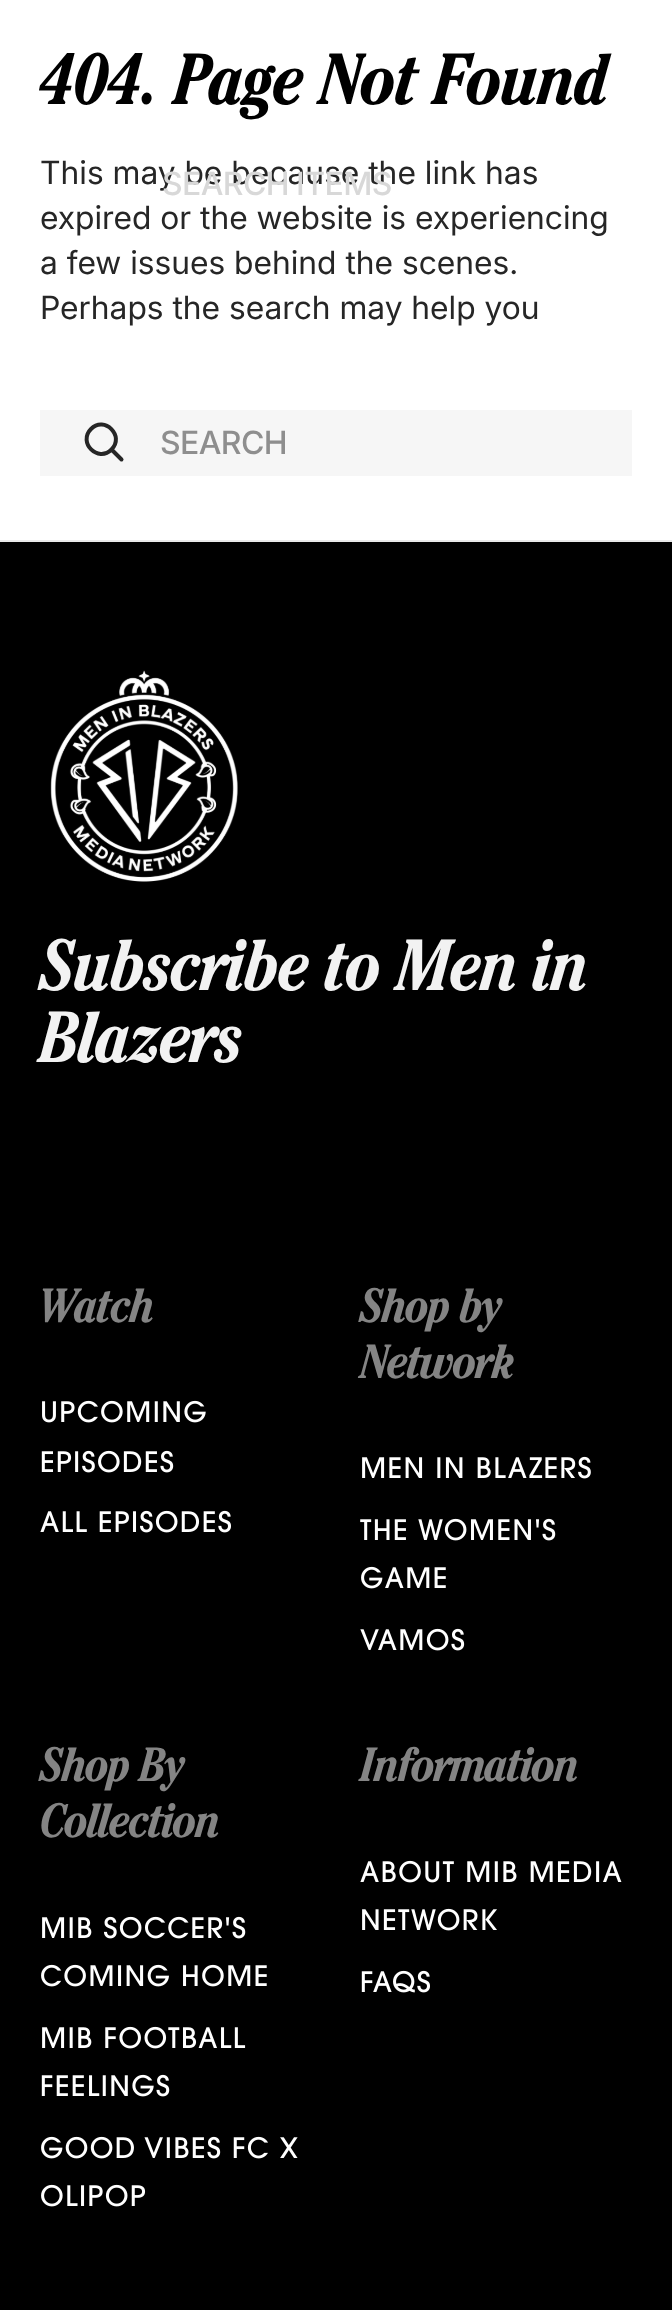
<svg xmlns="http://www.w3.org/2000/svg" width="672" height="2310">
<rect width="100%" height="100%" fill="#fff"/>
<text x="40" y="104" style="font-family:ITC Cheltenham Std;font-size:72px;font-weight:bold;font-style:italic;letter-spacing:-2px;fill:#000">404. Page Not Found</text>
<text x="40" y="184" style="font-family:Inter;font-size:32px;fill:#262626">This may be because the link has</text>
<text x="40" y="229" style="font-family:Inter;font-size:32px;fill:#262626">expired or the website is experiencing</text>
<text x="40" y="274" style="font-family:Inter;font-size:32px;fill:#262626">a few issues behind the scenes.</text>
<text x="40" y="319" style="font-family:Inter;font-size:32px;fill:#262626">Perhaps the search may help you</text>
<rect x="40" y="410" width="592" height="66" fill="#f6f6f6"/>
<path d="M121.5 459.5l-10-10m0 0c13.5-13.5-7-34-20.5-20.5c-13.5 13.5 7 34 20.5 20.5z" fill="none" stroke="#262626" stroke-width="4" stroke-linecap="round" stroke-linejoin="round"/>
<text x="160" y="454" style="font-family:Inter;font-size:32px;font-weight:500;letter-spacing:-0.6px;fill:#8e8e8e">SEARCH</text>
<text x="162" y="195" word-spacing="-1" style="font-family:Inter;font-size:32px;font-weight:500;letter-spacing:-0.6px;fill:#d8d8d8">SEARCH ITEMS</text>
<rect y="542" width="672" height="1768" fill="#000"/>
<rect y="540" width="672" height="2" fill="#eaeaea"/>
<image x="50" y="670" width="188" height="212" href="media/1.png"/>
<text x="40" y="990" style="font-family:ITC Cheltenham Std;font-size:72px;font-weight:bold;font-style:italic;letter-spacing:-2px;fill:#f2f2f2">Subscribe to Men in</text>
<text x="40" y="1062" style="font-family:ITC Cheltenham Std;font-size:72px;font-weight:bold;font-style:italic;letter-spacing:-2px;fill:#f2f2f2">Blazers</text>
<text x="40" y="1322" style="font-family:ITC Cheltenham Std;font-size:48px;font-weight:bold;font-style:italic;letter-spacing:-2px;fill:#848484">Watch</text>
<image x="42" y="1400" width="164" height="23" href="media/2.png"/>
<image x="41" y="1450" width="133" height="23" href="media/3.png"/>
<image x="40" y="1510" width="191" height="23" href="media/4.png"/>
<text x="360" y="1322" style="font-family:ITC Cheltenham Std;font-size:48px;font-weight:bold;font-style:italic;letter-spacing:-2px;fill:#848484">Shop by</text>
<text x="360" y="1378" style="font-family:ITC Cheltenham Std;font-size:48px;font-weight:bold;font-style:italic;letter-spacing:-2px;fill:#848484">Network</text>
<image x="362" y="1456" width="229" height="23" href="media/5.png"/>
<image x="360" y="1518" width="196" height="23" href="media/6.png"/>
<image x="361" y="1566" width="85" height="23" href="media/7.png"/>
<image x="360" y="1628" width="105" height="23" href="media/8.png"/>
<text x="40" y="1781" style="font-family:ITC Cheltenham Std;font-size:48px;font-weight:bold;font-style:italic;letter-spacing:-2px;fill:#848484">Shop By</text>
<text x="40" y="1837" style="font-family:ITC Cheltenham Std;font-size:48px;font-weight:bold;font-style:italic;letter-spacing:-2px;fill:#848484">Collection</text>
<image x="42" y="1916" width="204" height="23" href="media/9.png"/>
<image x="41" y="1964" width="226" height="23" href="media/10.png"/>
<image x="42" y="2026" width="204" height="23" href="media/11.png"/>
<image x="41" y="2074" width="129" height="23" href="media/12.png"/>
<image x="41" y="2136" width="257" height="23" href="media/13.png"/>
<image x="41" y="2184" width="105" height="23" href="media/14.png"/>
<text x="360" y="1781" style="font-family:ITC Cheltenham Std;font-size:48px;font-weight:bold;font-style:italic;letter-spacing:-2px;fill:#848484">Information</text>
<image x="360" y="1860" width="262" height="23" href="media/15.png"/>
<image x="362" y="1908" width="135" height="23" href="media/16.png"/>
<image x="361" y="1970" width="69" height="23" href="media/17.png"/>
</svg>
